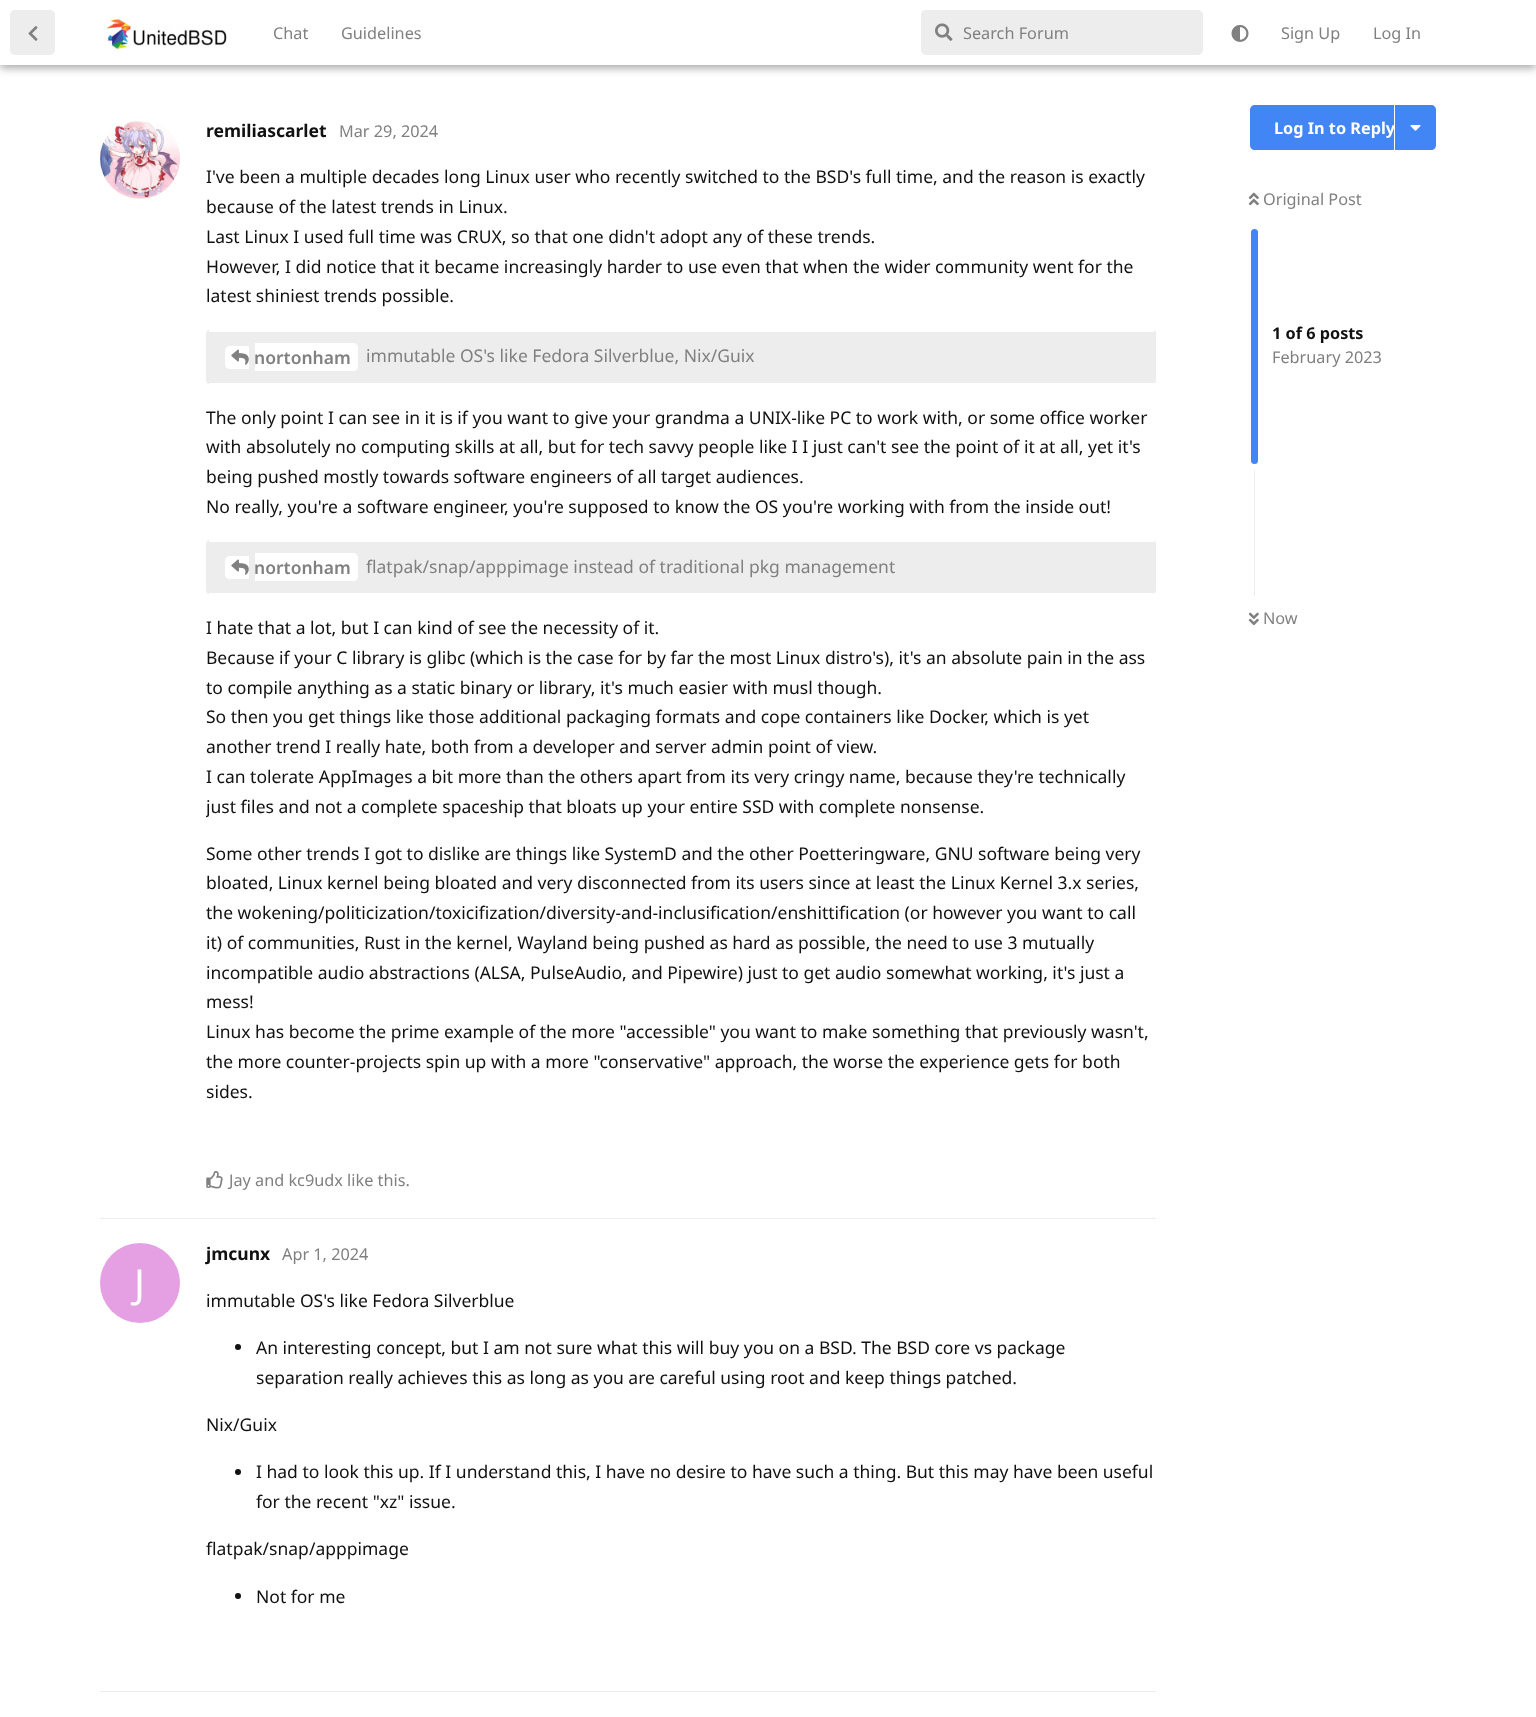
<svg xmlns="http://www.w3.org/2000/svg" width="1536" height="1717">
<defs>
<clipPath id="clip1"><rect x="206" y="163" width="950" height="961"/></clipPath>
</defs>
<rect width="100%" height="100%" fill="#fff"/>
<rect y="3" width="1536" height="65" fill="#00000059" filter="blur(4px)"/>
<rect width="1536" height="65" fill="#fff"/>
<rect x="10" y="10" width="45" height="45" rx="5" fill="#ededed"/>
<image x="28" y="26" width="10" height="15" href="media/1.png"/>
<image x="107" y="19" width="120" height="31" href="media/2.png"/>
<text x="273" y="39" style="font-family:Noto Sans;font-size:16.25px;fill:#808080">Chat</text>
<text x="341" y="39" style="font-family:Noto Sans;font-size:16.25px;fill:#808080">Guidelines</text>
<rect x="921" y="10" width="282" height="45" rx="5" fill="#ededed"/>
<image x="935" y="23" width="18" height="18" href="media/3.png"/>
<text x="963" y="39" style="font-family:Noto Sans;font-size:16.25px;fill:#808080">Search Forum</text>
<image x="1231" y="25" width="18" height="17" href="media/4.png"/>
<text x="1281" y="39" style="font-family:Noto Sans;font-size:16.25px;fill:#808080">Sign Up</text>
<text x="1373" y="39" style="font-family:Noto Sans;font-size:16.25px;fill:#808080">Log In</text>
<rect x="100" y="1218" width="1056" height="1" fill="#ededed"/>
<circle cx="140" cy="159" r="40" fill="#ededed"/>
<image x="100" y="119" width="80" height="80" href="media/5.png"/>
<text x="206" y="137" style="font-family:Noto Sans;font-size:17.5px;font-weight:bold;fill:#111">remiliascarlet</text>
<text x="339" y="137" style="font-family:Noto Sans;font-size:16.25px;fill:#808080">Mar 29, 2024</text>
<text x="206" y="183" style="font-family:Noto Sans;font-size:17.5px;fill:#111">I've been a multiple decades long Linux user who recently switched to the BSD's full time, and the reason is exactly</text>
<text x="206" y="213" style="font-family:Noto Sans;font-size:17.5px;fill:#111">because of the latest trends in Linux.</text>
<text x="206" y="243" style="font-family:Noto Sans;font-size:17.5px;fill:#111">Last Linux I used full time was CRUX, so that one didn't adopt any of these trends.</text>
<text x="206" y="273" style="font-family:Noto Sans;font-size:17.5px;fill:#111">However, I did notice that it became increasingly harder to use even that when the wider community went for the</text>
<text x="206" y="302" style="font-family:Noto Sans;font-size:17.5px;fill:#111">latest shiniest trends possible.</text>
<rect x="206" y="329" width="950" height="56" rx="5" fill="#ededed"/>
<rect x="209" y="329" width="945" height="3" fill="#fff"/>
<rect x="209" y="383" width="945" height="2" fill="#fff"/>
<path d="M230 346h19v23h-19c-3 0-5-2-5-5v-13c0-3 2-5 5-5z" fill="#fff"/>
<path d="M255 343h98c3 0 5 2 5 5v18c0 3-2 5-5 5h-98z" fill="#fff"/>
<image x="231" y="349" width="18" height="16" href="media/6.png"/>
<text x="254" y="364" style="font-family:Noto Sans;font-size:17.5px;font-weight:600;fill:#808080">nortonham</text>
<text x="366" y="362" style="font-family:Noto Sans;font-size:17.5px;fill:#808080">immutable OS's like Fedora Silverblue, Nix/Guix</text>
<text x="206" y="424" style="font-family:Noto Sans;font-size:17.5px;fill:#111">The only point I can see in it is if you want to give your grandma a UNIX-like PC to work with, or some office worker</text>
<text x="206" y="453" style="font-family:Noto Sans;font-size:17.5px;fill:#111">with absolutely no computing skills at all, but for tech savvy people like I I just can't see the point of it at all, yet it's</text>
<text x="206" y="483" style="font-family:Noto Sans;font-size:17.5px;fill:#111">being pushed mostly towards software engineers of all target audiences.</text>
<text x="206" y="513" style="font-family:Noto Sans;font-size:17.5px;fill:#111">No really, you're a software engineer, you're supposed to know the OS you're working with from the inside out!</text>
<rect x="206" y="539" width="950" height="56" rx="5" fill="#ededed"/>
<rect x="209" y="539" width="945" height="3" fill="#fff"/>
<rect x="209" y="593" width="945" height="2" fill="#fff"/>
<path d="M230 556h19v23h-19c-3 0-5-2-5-5v-13c0-3 2-5 5-5z" fill="#fff"/>
<path d="M255 553h98c3 0 5 2 5 5v18c0 3-2 5-5 5h-98z" fill="#fff"/>
<image x="231" y="559" width="18" height="16" href="media/6.png"/>
<text x="254" y="574" style="font-family:Noto Sans;font-size:17.5px;font-weight:600;fill:#808080">nortonham</text>
<text x="366" y="573" style="font-family:Noto Sans;font-size:17.5px;fill:#808080">flatpak/snap/apppimage instead of traditional pkg management</text>
<text x="206" y="634" style="font-family:Noto Sans;font-size:17.5px;fill:#111">I hate that a lot, but I can kind of see the necessity of it.</text>
<text x="206" y="664" style="font-family:Noto Sans;font-size:17.5px;fill:#111">Because if your C library is glibc (which is the case for by far the most Linux distro's), it's an absolute pain in the ass</text>
<text x="206" y="694" style="font-family:Noto Sans;font-size:17.5px;fill:#111">to compile anything as a static binary or library, it's much easier with musl though.</text>
<text x="206" y="723" style="font-family:Noto Sans;font-size:17.5px;fill:#111">So then you get things like those additional packaging formats and cope containers like Docker, which is yet</text>
<text x="206" y="753" style="font-family:Noto Sans;font-size:17.5px;fill:#111">another trend I really hate, both from a developer and server admin point of view.</text>
<text x="206" y="783" style="font-family:Noto Sans;font-size:17.5px;fill:#111">I can tolerate AppImages a bit more than the others apart from its very cringy name, because they're technically</text>
<g clip-path="url(#clip1)">
<text x="206" y="813" style="font-family:Noto Sans;font-size:17.5px;fill:#111">just files and not a complete spaceship that bloats up your entire SSD with complete nonsense.</text>
</g>
<text x="206" y="860" style="font-family:Noto Sans;font-size:17.5px;fill:#111">Some other trends I got to dislike are things like SystemD and the other Poetteringware, GNU software being very</text>
<text x="206" y="889" style="font-family:Noto Sans;font-size:17.5px;fill:#111">bloated, Linux kernel being bloated and very disconnected from its users since at least the Linux Kernel 3.x series,</text>
<text x="206" y="919" style="font-family:Noto Sans;font-size:17.5px;fill:#111">the wokening/politicization/toxicifization/diversity-and-inclusification/enshittification (or however you want to call</text>
<text x="206" y="949" style="font-family:Noto Sans;font-size:17.5px;fill:#111">it) of communities, Rust in the kernel, Wayland being pushed as hard as possible, the need to use 3 mutually</text>
<text x="206" y="979" style="font-family:Noto Sans;font-size:17.5px;fill:#111">incompatible audio abstractions (ALSA, PulseAudio, and Pipewire) just to get audio somewhat working, it's just a</text>
<text x="206" y="1008" style="font-family:Noto Sans;font-size:17.5px;fill:#111">mess!</text>
<text x="206" y="1038" style="font-family:Noto Sans;font-size:17.5px;fill:#111">Linux has become the prime example of the more "accessible" you want to make something that previously wasn't,</text>
<text x="206" y="1068" style="font-family:Noto Sans;font-size:17.5px;fill:#111">the more counter-projects spin up with a more "conservative" approach, the worse the experience gets for both</text>
<text x="206" y="1098" style="font-family:Noto Sans;font-size:17.5px;fill:#111">sides.</text>
<image x="206" y="1171" width="17" height="18" href="media/7.png"/>
<text x="229" y="1186" style="font-family:Noto Sans;font-size:16.25px;fill:#808080">Jay and kc9udx like this.</text>
<rect x="100" y="1691" width="1056" height="1" fill="#ededed"/>
<text x="206" y="1260" style="font-family:Noto Sans;font-size:17.5px;font-weight:bold;fill:#111">jmcunx</text>
<circle cx="140" cy="1283" r="40" fill="#e5a0e4"/>
<text x="134" y="1298" style="font-family:Noto Sans;font-size:40px;fill:#fff">J</text>
<text x="282" y="1260" style="font-family:Noto Sans;font-size:16.25px;fill:#808080">Apr 1, 2024</text>
<text x="206" y="1307" style="font-family:Noto Sans;font-size:17.5px;fill:#111">immutable OS's like Fedora Silverblue</text>
<circle cx="238" cy="1347" r="3" fill="#111"/>
<text x="256" y="1354" style="font-family:Noto Sans;font-size:17.5px;fill:#111">An interesting concept, but I am not sure what this will buy you on a BSD. The BSD core vs package</text>
<text x="256" y="1384" style="font-family:Noto Sans;font-size:17.5px;fill:#111">separation really achieves this as long as you are careful using root and keep things patched.</text>
<text x="206" y="1431" style="font-family:Noto Sans;font-size:17.5px;fill:#111">Nix/Guix</text>
<circle cx="238" cy="1472" r="3" fill="#111"/>
<text x="256" y="1478" style="font-family:Noto Sans;font-size:17.5px;fill:#111">I had to look this up. If I understand this, I have no desire to have such a thing. But this may have been useful</text>
<text x="256" y="1508" style="font-family:Noto Sans;font-size:17.5px;fill:#111">for the recent "xz" issue.</text>
<text x="206" y="1555" style="font-family:Noto Sans;font-size:17.5px;fill:#111">flatpak/snap/apppimage</text>
<circle cx="238" cy="1596" r="3" fill="#111"/>
<text x="256" y="1603" style="font-family:Noto Sans;font-size:17.5px;fill:#111">Not for me</text>
<path d="M1255 105h139v45h-139c-3 0-5-2-5-5v-35c0-3 2-5 5-5z" fill="#4285f4"/>
<text x="1274" y="134" style="font-family:Noto Sans;font-size:16.25px;font-weight:bold;fill:#fff">Log In to Reply</text>
<path d="M1395 105h36c3 0 5 2 5 5v35c0 3-2 5-5 5h-36z" fill="#4285f4"/>
<image x="1410" y="125" width="11" height="6" href="media/8.png"/>
<image x="1248" y="192" width="11" height="14" href="media/9.png"/>
<text x="1263" y="205" style="font-family:Noto Sans;font-size:16.25px;fill:#808080">Original Post</text>
<rect x="1251" y="229" width="7" height="235" rx="3.5" fill="#4285f4"/>
<text x="1272" y="339" style="font-family:Noto Sans;font-size:16.25px;font-weight:bold;fill:#111">1 of 6 posts</text>
<text x="1272" y="363" style="font-family:Noto Sans;font-size:16.25px;fill:#808080">February 2023</text>
<rect x="1254" y="470" width="1" height="126" fill="#ededed"/>
<image x="1248" y="612" width="11" height="14" href="media/10.png"/>
<text x="1263" y="624" style="font-family:Noto Sans;font-size:16.25px;fill:#808080">Now</text>
</svg>
